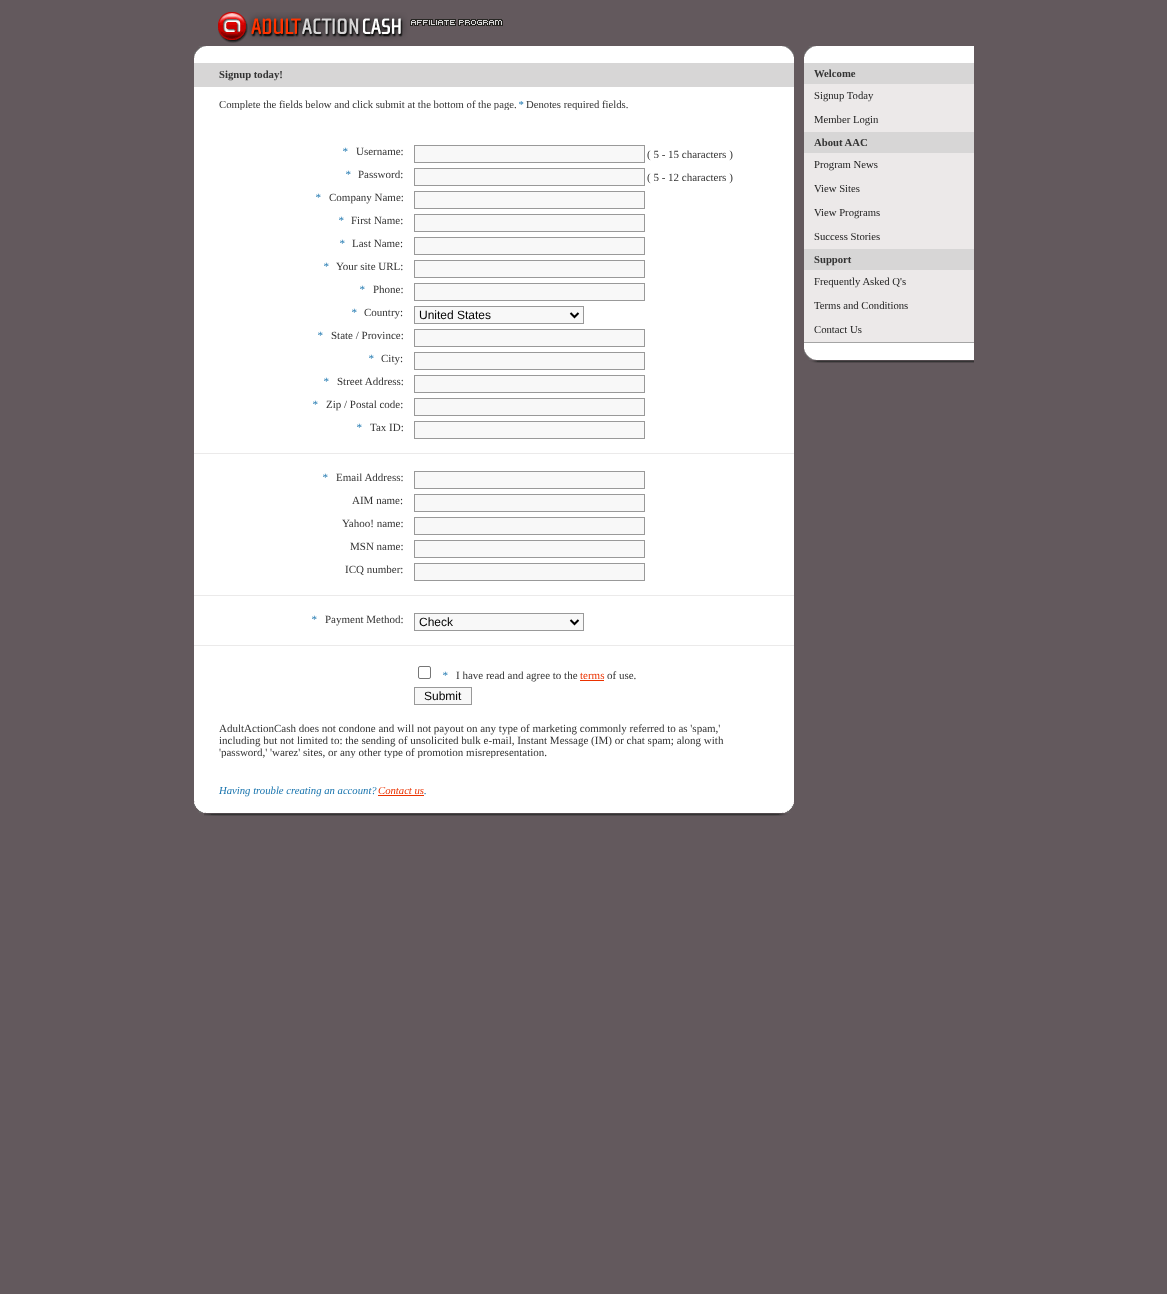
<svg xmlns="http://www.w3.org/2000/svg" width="1167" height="1294">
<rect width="100%" height="100%" fill="#63595d"/>
<image x="194" y="12" width="780" height="51" href="media/1.png"/>
<rect x="194" y="87" width="600" height="709" fill="#fff"/>
<rect x="194" y="63" width="600" height="24" fill="#d7d6d6"/>
<text x="219" y="78" style="font-family:Liberation Serif;font-size:10.7px;font-weight:bold;fill:#333">Signup today!</text>
<text x="219" y="108" style="font-family:Liberation Serif;font-size:10.7px;fill:#333">Complete the fields below and click submit at the bottom of the page.</text>
<text x="518" y="108" style="font-family:Liberation Serif;font-size:10.7px;font-style:italic;fill:#1773ad">*</text>
<text x="526" y="108" style="font-family:Liberation Serif;font-size:10.7px;fill:#333">Denotes required fields.</text>
<rect x="239" y="110" width="338" height="1" fill="#fff"/>
<text x="342" y="155" style="font-family:Liberation Serif;font-size:11px;font-style:italic;fill:#1773ad">*</text>
<text x="356" y="155" style="font-family:Liberation Serif;font-size:11px;fill:#333">Username:</text>
<rect x="414.5" y="145.5" width="230" height="17" fill="#f8f8f8" stroke="#999"/>
<text x="647" y="158" style="font-family:Liberation Serif;font-size:11px;fill:#333">( 5 - 15 characters )</text>
<text x="345" y="178" style="font-family:Liberation Serif;font-size:11px;font-style:italic;fill:#1773ad">*</text>
<text x="358" y="178" style="font-family:Liberation Serif;font-size:11px;fill:#333">Password:</text>
<rect x="414.5" y="168.5" width="230" height="17" fill="#f8f8f8" stroke="#999"/>
<text x="647" y="181" style="font-family:Liberation Serif;font-size:11px;fill:#333">( 5 - 12 characters )</text>
<text x="315" y="201" style="font-family:Liberation Serif;font-size:11px;font-style:italic;fill:#1773ad">*</text>
<text x="329" y="201" style="font-family:Liberation Serif;font-size:11px;fill:#333">Company Name:</text>
<rect x="414.5" y="191.5" width="230" height="17" fill="#f8f8f8" stroke="#999"/>
<text x="338" y="224" style="font-family:Liberation Serif;font-size:11px;font-style:italic;fill:#1773ad">*</text>
<text x="351" y="224" style="font-family:Liberation Serif;font-size:11px;fill:#333">First Name:</text>
<rect x="414.5" y="214.5" width="230" height="17" fill="#f8f8f8" stroke="#999"/>
<text x="339" y="247" style="font-family:Liberation Serif;font-size:11px;font-style:italic;fill:#1773ad">*</text>
<text x="352" y="247" style="font-family:Liberation Serif;font-size:11px;fill:#333">Last Name:</text>
<rect x="414.5" y="237.5" width="230" height="17" fill="#f8f8f8" stroke="#999"/>
<text x="323" y="270" style="font-family:Liberation Serif;font-size:11px;font-style:italic;fill:#1773ad">*</text>
<text x="336" y="270" style="font-family:Liberation Serif;font-size:11px;fill:#333">Your site URL:</text>
<rect x="414.5" y="260.5" width="230" height="17" fill="#f8f8f8" stroke="#999"/>
<text x="359" y="293" style="font-family:Liberation Serif;font-size:11px;font-style:italic;fill:#1773ad">*</text>
<text x="373" y="293" style="font-family:Liberation Serif;font-size:11px;fill:#333">Phone:</text>
<rect x="414.5" y="283.5" width="230" height="17" fill="#f8f8f8" stroke="#999"/>
<text x="351" y="316" style="font-family:Liberation Serif;font-size:11px;font-style:italic;fill:#1773ad">*</text>
<text x="364" y="316" style="font-family:Liberation Serif;font-size:11px;fill:#333">Country:</text>
<rect x="414.5" y="306.5" width="169" height="17" fill="#f8f8f8" stroke="#999"/>
<path d="M570.5 313l4 4l4-4" fill="none" stroke="#000" stroke-width="2"/>
<text x="419" y="319" style="font-family:Liberation Sans;font-size:12px;fill:#000">United States</text>
<text x="317" y="339" style="font-family:Liberation Serif;font-size:11px;font-style:italic;fill:#1773ad">*</text>
<text x="331" y="339" style="font-family:Liberation Serif;font-size:11px;fill:#333">State / Province:</text>
<rect x="414.5" y="329.5" width="230" height="17" fill="#f8f8f8" stroke="#999"/>
<text x="368" y="362" style="font-family:Liberation Serif;font-size:11px;font-style:italic;fill:#1773ad">*</text>
<text x="381" y="362" style="font-family:Liberation Serif;font-size:11px;fill:#333">City:</text>
<rect x="414.5" y="352.5" width="230" height="17" fill="#f8f8f8" stroke="#999"/>
<text x="323" y="385" style="font-family:Liberation Serif;font-size:11px;font-style:italic;fill:#1773ad">*</text>
<text x="337" y="385" style="font-family:Liberation Serif;font-size:11px;fill:#333">Street Address:</text>
<rect x="414.5" y="375.5" width="230" height="17" fill="#f8f8f8" stroke="#999"/>
<text x="312" y="408" style="font-family:Liberation Serif;font-size:11px;font-style:italic;fill:#1773ad">*</text>
<text x="326" y="408" style="font-family:Liberation Serif;font-size:11px;fill:#333">Zip / Postal code:</text>
<rect x="414.5" y="398.5" width="230" height="17" fill="#f8f8f8" stroke="#999"/>
<text x="356" y="431" style="font-family:Liberation Serif;font-size:11px;font-style:italic;fill:#1773ad">*</text>
<text x="370" y="431" style="font-family:Liberation Serif;font-size:11px;fill:#333">Tax ID:</text>
<rect x="414.5" y="421.5" width="230" height="17" fill="#f8f8f8" stroke="#999"/>
<rect x="194" y="453" width="600" height="1" fill="#ebeaea"/>
<text x="322" y="481" style="font-family:Liberation Serif;font-size:11px;font-style:italic;fill:#1773ad">*</text>
<text x="336" y="481" style="font-family:Liberation Serif;font-size:11px;fill:#333">Email Address:</text>
<rect x="414.5" y="471.5" width="230" height="17" fill="#f8f8f8" stroke="#999"/>
<text x="352" y="504" style="font-family:Liberation Serif;font-size:11px;fill:#333">AIM name:</text>
<rect x="414.5" y="494.5" width="230" height="17" fill="#f8f8f8" stroke="#999"/>
<text x="342" y="527" style="font-family:Liberation Serif;font-size:11px;fill:#333">Yahoo! name:</text>
<rect x="414.5" y="517.5" width="230" height="17" fill="#f8f8f8" stroke="#999"/>
<text x="350" y="550" style="font-family:Liberation Serif;font-size:11px;fill:#333">MSN name:</text>
<rect x="414.5" y="540.5" width="230" height="17" fill="#f8f8f8" stroke="#999"/>
<text x="345" y="573" style="font-family:Liberation Serif;font-size:11px;fill:#333">ICQ number:</text>
<rect x="414.5" y="563.5" width="230" height="17" fill="#f8f8f8" stroke="#999"/>
<rect x="194" y="595" width="600" height="1" fill="#ebeaea"/>
<text x="311" y="623" style="font-family:Liberation Serif;font-size:11px;font-style:italic;fill:#1773ad">*</text>
<text x="325" y="623" style="font-family:Liberation Serif;font-size:11px;fill:#333">Payment Method:</text>
<rect x="414.5" y="613.5" width="169" height="17" fill="#f8f8f8" stroke="#999"/>
<path d="M570.5 620l4 4l4-4" fill="none" stroke="#000" stroke-width="2"/>
<text x="419" y="626" style="font-family:Liberation Sans;font-size:12px;fill:#000">Check</text>
<rect x="194" y="645" width="600" height="1" fill="#ebeaea"/>
<rect x="418.5" y="666.5" width="12" height="12" rx="1.5" fill="none" stroke="#767676"/>
<text x="442" y="679" style="font-family:Liberation Serif;font-size:11px;font-style:italic;fill:#1773ad">*</text>
<text x="456" y="679" style="font-family:Liberation Serif;font-size:11px;fill:#333">I have read and agree to the</text>
<text x="580" y="679" style="font-family:Liberation Serif;font-size:11px;fill:#eb3200">terms</text>
<rect x="580" y="680" width="24" height="1" fill="#eb3200"/>
<text x="607" y="679" style="font-family:Liberation Serif;font-size:11px;fill:#333">of use.</text>
<rect x="414.5" y="687.5" width="57" height="17" fill="#f8f8f8" stroke="#999"/>
<text x="424" y="700" style="font-family:Liberation Sans;font-size:12px;fill:#000">Submit</text>
<text x="219" y="732" style="font-family:Liberation Serif;font-size:11px;fill:#333">AdultActionCash does not condone and will not payout on any type of marketing commonly referred to as 'spam,'</text>
<text x="219" y="744" style="font-family:Liberation Serif;font-size:11px;fill:#333">including but not limited to: the sending of unsolicited bulk e-mail, Instant Message (IM) or chat spam; along with</text>
<text x="219" y="756" style="font-family:Liberation Serif;font-size:11px;fill:#333">'password,' 'warez' sites, or any other type of promotion misrepresentation.</text>
<rect x="220" y="758" width="273" height="1" fill="#fff"/>
<image x="194" y="796" width="600" height="20" href="media/3.png"/>
<text x="219" y="794" style="font-family:Liberation Serif;font-size:10.7px;font-style:italic;fill:#1773ad">Having trouble creating an account?</text>
<text x="378" y="794" style="font-family:Liberation Serif;font-size:10.7px;font-style:italic;fill:#eb3200">Contact us</text>
<text x="424" y="794" style="font-family:Liberation Serif;font-size:10.7px;font-style:italic;fill:#1773ad">.</text>
<rect x="378" y="795" width="46" height="1" fill="#eb3200"/>
<rect x="804" y="63" width="170" height="21" fill="#d7d6d6"/>
<text x="814" y="77" style="font-family:Liberation Serif;font-size:10.7px;font-weight:bold;fill:#333">Welcome</text>
<rect x="804" y="84" width="170" height="48" fill="#ece9e9"/>
<text x="814" y="99" style="font-family:Liberation Serif;font-size:10.7px;fill:#222">Signup Today</text>
<text x="814" y="123" style="font-family:Liberation Serif;font-size:10.7px;fill:#222">Member Login</text>
<rect x="804" y="132" width="170" height="21" fill="#d7d6d6"/>
<text x="814" y="146" style="font-family:Liberation Serif;font-size:10.7px;font-weight:bold;fill:#333">About AAC</text>
<rect x="804" y="153" width="170" height="96" fill="#ece9e9"/>
<text x="814" y="168" style="font-family:Liberation Serif;font-size:10.7px;fill:#222">Program News</text>
<text x="814" y="192" style="font-family:Liberation Serif;font-size:10.7px;fill:#222">View Sites</text>
<text x="814" y="216" style="font-family:Liberation Serif;font-size:10.7px;fill:#222">View Programs</text>
<text x="814" y="240" style="font-family:Liberation Serif;font-size:10.7px;fill:#222">Success Stories</text>
<rect x="804" y="249" width="170" height="21" fill="#d7d6d6"/>
<text x="814" y="263" style="font-family:Liberation Serif;font-size:10.7px;font-weight:bold;fill:#333">Support</text>
<rect x="804" y="270" width="170" height="72" fill="#ece9e9"/>
<text x="814" y="285" style="font-family:Liberation Serif;font-size:10.7px;fill:#222">Frequently Asked Q's</text>
<text x="814" y="309" style="font-family:Liberation Serif;font-size:10.7px;fill:#222">Terms and Conditions</text>
<text x="814" y="333" style="font-family:Liberation Serif;font-size:10.7px;fill:#222">Contact Us</text>
<image x="804" y="342" width="170" height="21" href="media/2.png"/>
</svg>
